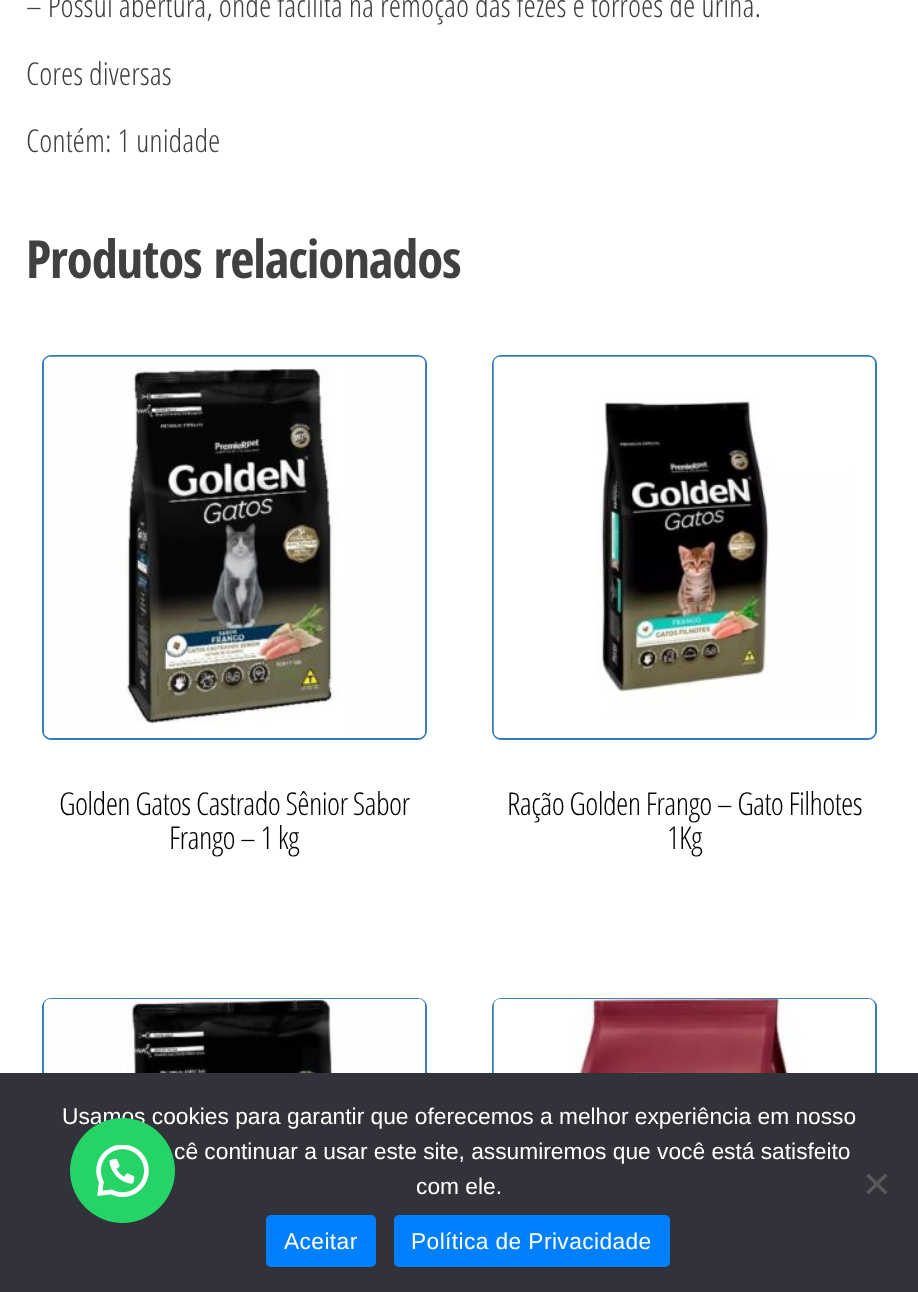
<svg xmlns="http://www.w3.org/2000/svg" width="918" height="1292">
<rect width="100%" height="100%" fill="#fff"/>
<text x="26" y="17" style="font-family:Open Sans Condensed;font-size:31.5px;font-weight:300;fill:#404040">– Possuí abertura, onde facilita na remoção das fezes e torrões de urina.</text>
<text x="26" y="85" style="font-family:Open Sans Condensed;font-size:31.5px;font-weight:300;fill:#404040">Cores diversas</text>
<text x="26" y="152" style="font-family:Open Sans Condensed;font-size:31.5px;font-weight:300;fill:#404040">Contém: 1 unidade</text>
<text x="26" y="278" style="font-family:Open Sans Condensed;font-size:52.5px;font-weight:bold;letter-spacing:-1.05px;fill:#404040">Produtos relacionados</text>
<rect x="43" y="356" width="383" height="383" rx="8" fill="none" stroke="#337ab7" stroke-width="2"/>
<image x="43" y="356" width="383" height="382" href="media/1.png"/>
<text x="59" y="815" style="font-family:Open Sans Condensed;font-size:31.5px;font-weight:300;letter-spacing:-0.65px;fill:#000">Golden Gatos Castrado Sênior Sabor</text>
<text x="169" y="849" style="font-family:Open Sans Condensed;font-size:31.5px;font-weight:300;letter-spacing:-0.65px;fill:#000">Frango – 1 kg</text>
<rect x="493" y="356" width="383" height="383" rx="8" fill="none" stroke="#337ab7" stroke-width="2"/>
<image x="493" y="356" width="382" height="382" href="media/2.png"/>
<text x="507" y="815" style="font-family:Open Sans Condensed;font-size:31.5px;font-weight:300;letter-spacing:-0.65px;fill:#000">Ração Golden Frango – Gato Filhotes</text>
<text x="667" y="849" style="font-family:Open Sans Condensed;font-size:31.5px;font-weight:300;letter-spacing:-0.65px;fill:#000">1Kg</text>
<rect x="43" y="999" width="383" height="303" rx="8" fill="none" stroke="#337ab7" stroke-width="2"/>
<image x="43" y="998" width="383" height="75" href="media/3.png"/>
<rect x="493" y="999" width="383" height="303" rx="8" fill="none" stroke="#337ab7" stroke-width="2"/>
<image x="493" y="998" width="382" height="75" href="media/4.png"/>
<rect y="1073" width="918" height="219" fill="#32323a"/>
<text x="62" y="1124" style="font-family:Liberation Sans;font-size:22.75px;fill:#fff">Usamos cookies para garantir que oferecemos a melhor experiência em nosso</text>
<text x="174" y="1159" style="font-family:Liberation Sans;font-size:22.75px;fill:#fff">cê continuar a usar este site, assumiremos que você está satisfeito</text>
<text x="416" y="1194" style="font-family:Liberation Sans;font-size:22.75px;fill:#fff">com ele.</text>
<path d="M885 1173.5l2.5 2.5l-19 18.5l-2.5-2.5z" fill="#59595d"/>
<path d="M866 1176l2.5-2.5l19 18.5l-2.5 2.5z" fill="#59595d"/>
<rect x="266" y="1215" width="110" height="52" rx="5" fill="#007fff"/>
<text x="284" y="1249" style="font-family:Liberation Sans;font-size:22.75px;letter-spacing:0.4px;fill:#fff">Aceitar</text>
<rect x="394" y="1215" width="276" height="52" rx="5" fill="#007fff"/>
<text x="411" y="1249" style="font-family:Liberation Sans;font-size:22.75px;letter-spacing:0.4px;fill:#fff">Política de Privacidade</text>
<circle cx="122.5" cy="1170.5" r="52.5" fill="#25d366"/>
<image x="96" y="1145" width="53" height="52" href="media/5.png"/>
</svg>
